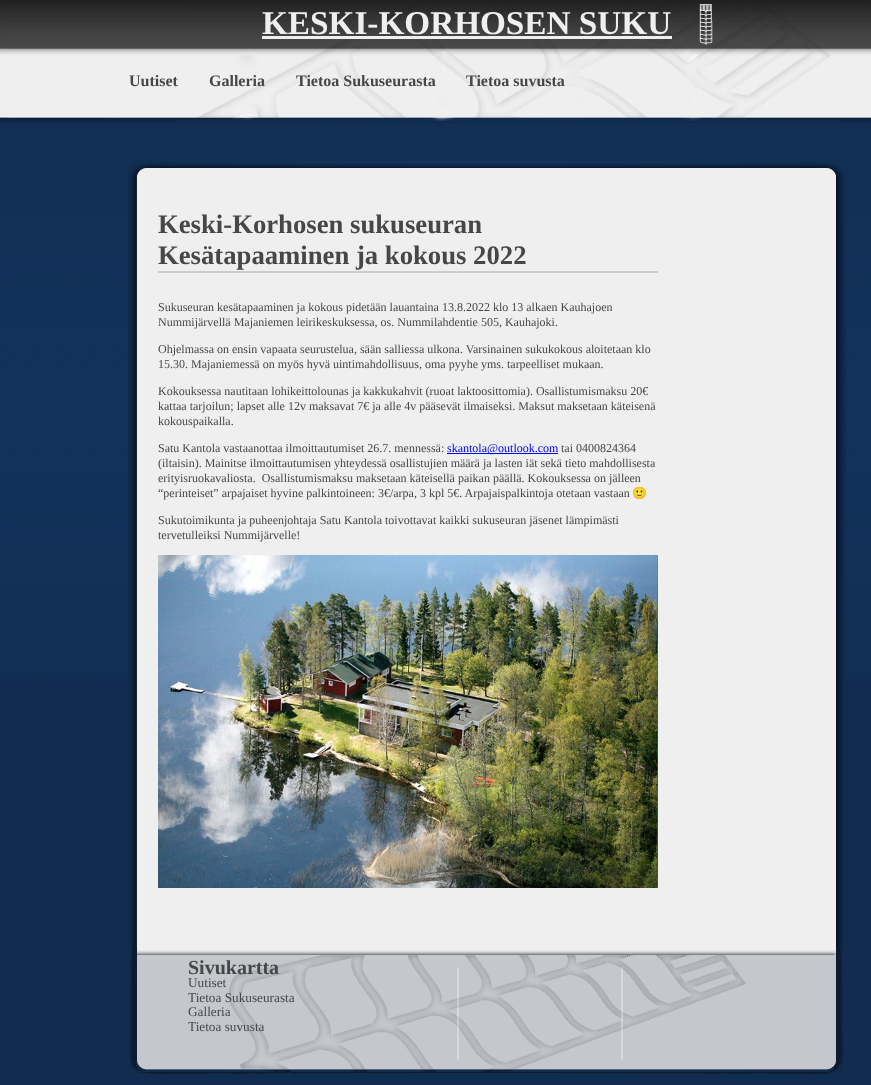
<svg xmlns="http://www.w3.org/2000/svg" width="871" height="1085">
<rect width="100%" height="100%" fill="#102c50"/>
<image x="0" y="0" width="871" height="679" href="media/1.png"/>
<image x="8" y="4" width="863" height="117" href="media/2.png"/>
<text x="262" y="34" style="font-family:Liberation Serif;font-size:33.25px;font-weight:bold;fill:#efefef">KESKI-KORHOSEN SUKU</text>
<rect x="262" y="36" width="410" height="3" fill="#efefef"/>
<text x="129" y="86" style="font-family:Liberation Serif;font-size:16px;font-weight:bold;fill:#474747">Uutiset</text>
<text x="209" y="86" style="font-family:Liberation Serif;font-size:16px;font-weight:bold;fill:#474747">Galleria</text>
<text x="296" y="86" style="font-family:Liberation Serif;font-size:16px;font-weight:bold;fill:#474747">Tietoa Sukuseurasta</text>
<text x="466" y="86" style="font-family:Liberation Serif;font-size:16px;font-weight:bold;fill:#474747">Tietoa suvusta</text>
<image x="128" y="161" width="717" height="22" href="media/3.png"/>
<image x="128" y="183" width="718" height="764" href="media/4.png"/>
<rect x="158" y="271" width="500" height="2" fill="#ccc"/>
<text x="158" y="233" style="font-family:Liberation Serif;font-size:26.7px;font-weight:bold;fill:#474747">Keski-Korhosen sukuseuran</text>
<text x="158" y="264" style="font-family:Liberation Serif;font-size:26.7px;font-weight:bold;fill:#474747">Kesätapaaminen ja kokous 2022</text>
<text x="158" y="311" style="font-family:Liberation Serif;font-size:12px;fill:#474747">Sukuseuran kesätapaaminen ja kokous pidetään lauantaina 13.8.2022 klo 13 alkaen Kauhajoen</text>
<text x="158" y="326" style="font-family:Liberation Serif;font-size:12px;fill:#474747">Nummijärvellä Majaniemen leirikeskuksessa, os. Nummilahdentie 505, Kauhajoki.</text>
<text x="158" y="353" style="font-family:Liberation Serif;font-size:12px;fill:#474747">Ohjelmassa on ensin vapaata seurustelua, sään salliessa ulkona. Varsinainen sukukokous aloitetaan klo</text>
<text x="158" y="368" style="font-family:Liberation Serif;font-size:12px;fill:#474747">15.30. Majaniemessä on myös hyvä uintimahdollisuus, oma pyyhe yms. tarpeelliset mukaan.</text>
<text x="158" y="395" style="font-family:Liberation Serif;font-size:12px;fill:#474747">Kokouksessa nautitaan lohikeittolounas ja kakkukahvit (ruoat laktoosittomia). Osallistumismaksu 20€</text>
<text x="158" y="410" style="font-family:Liberation Serif;font-size:12px;fill:#474747">kattaa tarjoilun; lapset alle 12v maksavat 7€ ja alle 4v pääsevät ilmaiseksi. Maksut maksetaan käteisenä</text>
<text x="158" y="425" style="font-family:Liberation Serif;font-size:12px;fill:#474747">kokouspaikalla.</text>
<text x="158" y="452" style="font-family:Liberation Serif;font-size:12px;fill:#474747">Satu Kantola vastaanottaa ilmoittautumiset 26.7. mennessä:</text>
<rect x="447" y="453" width="111" height="1" fill="#00e"/>
<text x="447" y="452" style="font-family:Liberation Serif;font-size:12px;fill:#00e">skantola@outlook.com</text>
<text x="561" y="452" style="font-family:Liberation Serif;font-size:12px;fill:#474747">tai 0400824364</text>
<text x="158" y="467" style="font-family:Liberation Serif;font-size:12px;fill:#474747">(iltaisin). Mainitse ilmoittautumisen yhteydessä osallistujien määrä ja lasten iät sekä tieto mahdollisesta</text>
<text x="158" y="482" style="font-family:Liberation Serif;font-size:12px;fill:#474747" xml:space="preserve">erityisruokavaliosta.  Osallistumismaksu maksetaan käteisellä paikan päällä. Kokouksessa on jälleen</text>
<text x="158" y="497" style="font-family:Liberation Serif;font-size:12px;fill:#474747">“perinteiset” arpajaiset hyvine palkintoineen: 3€/arpa, 3 kpl 5€. Arpajaispalkintoja otetaan vastaan</text>
<text x="632" y="497" style="font-family:Noto Color Emoji;font-size:12px;fill:#474747">🙂</text>
<text x="158" y="524" style="font-family:Liberation Serif;font-size:12px;fill:#474747">Sukutoimikunta ja puheenjohtaja Satu Kantola toivottavat kaikki sukuseuran jäsenet lämpimästi</text>
<text x="158" y="539" style="font-family:Liberation Serif;font-size:12px;fill:#474747">tervetulleiksi Nummijärvelle!</text>
<image x="158" y="555" width="500" height="333" href="media/5.png"/>
<image x="129" y="947" width="715" height="128" href="media/6.png"/>
<text x="188" y="974" style="font-family:Liberation Serif;font-size:20px;font-weight:bold;fill:#474747">Sivukartta</text>
<text x="188" y="987" style="font-family:Liberation Serif;font-size:13.25px;fill:#474747">Uutiset</text>
<text x="188" y="1002" style="font-family:Liberation Serif;font-size:13.25px;fill:#474747">Tietoa Sukuseurasta</text>
<text x="188" y="1016" style="font-family:Liberation Serif;font-size:13.25px;fill:#474747">Galleria</text>
<text x="188" y="1031" style="font-family:Liberation Serif;font-size:13.25px;fill:#474747">Tietoa suvusta</text>
</svg>
